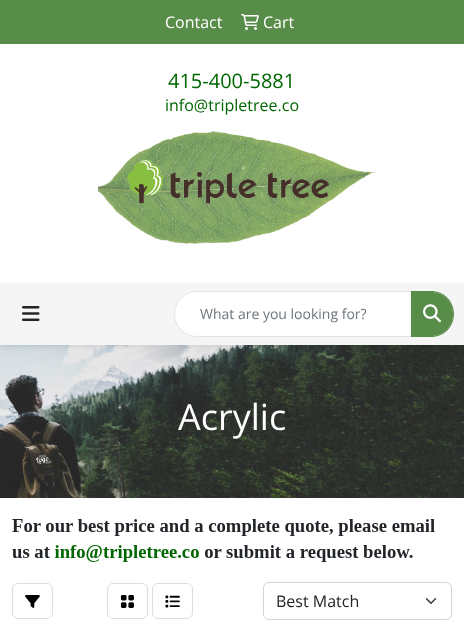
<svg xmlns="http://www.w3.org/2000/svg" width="464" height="622">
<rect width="100%" height="100%" fill="#fff"/>
<rect width="464" height="44" fill="#588c49"/>
<text x="165" y="28" style="font-family:Open Sans;font-size:16px;fill:#fff">Contact</text>
<image x="241" y="14" width="18" height="16" href="media/1.png"/>
<text x="263" y="28" style="font-family:Open Sans;font-size:16px;fill:#fff">Cart</text>
<text x="168" y="88" style="font-family:Open Sans;font-size:20px;fill:#060">415-400-5881</text>
<text x="165" y="111" style="font-family:Open Sans;font-size:16px;fill:#060">info@tripletree.co</text>
<image x="98" y="131" width="278" height="113" href="media/2.png"/>
<image x="0" y="345" width="464" height="153" href="media/5.png"/>
<rect y="285" width="464" height="62" fill="#00000012" filter="blur(2px)"/>
<rect y="283" width="464" height="62" fill="#f5f5f5"/>
<image x="22" y="306" width="18" height="15" href="media/3.png"/>
<path d="M197 291.5h214.5v45h-214.5c-12.5 0-22.5-10-22.5-22.5c0-12.5 10-22.5 22.5-22.5z" fill="#fff" stroke="#e4e4e4"/>
<text x="200" y="319" style="font-family:Open Sans;font-size:14px;fill:#6c757d">What are you looking for?</text>
<path d="M411 292h20c12 0 22 10 22 22c0 12-10 22-22 22h-20z" fill="#588c49"/>
<path d="M411 291h20c13 0 23 10 23 23c0 13-10 23-23 23h-20zm0 1h20c12 0 22 10 22 22c0 12-10 22-22 22h-20z" fill="#588c49" fill-rule="evenodd"/>
<image x="423" y="304" width="18" height="19" href="media/4.png"/>
<text x="178" y="430" style="font-family:Open Sans;font-size:36px;fill:#fff">Acrylic</text>
<image x="12" y="519" width="440" height="101" href="media/6.png"/>
</svg>
